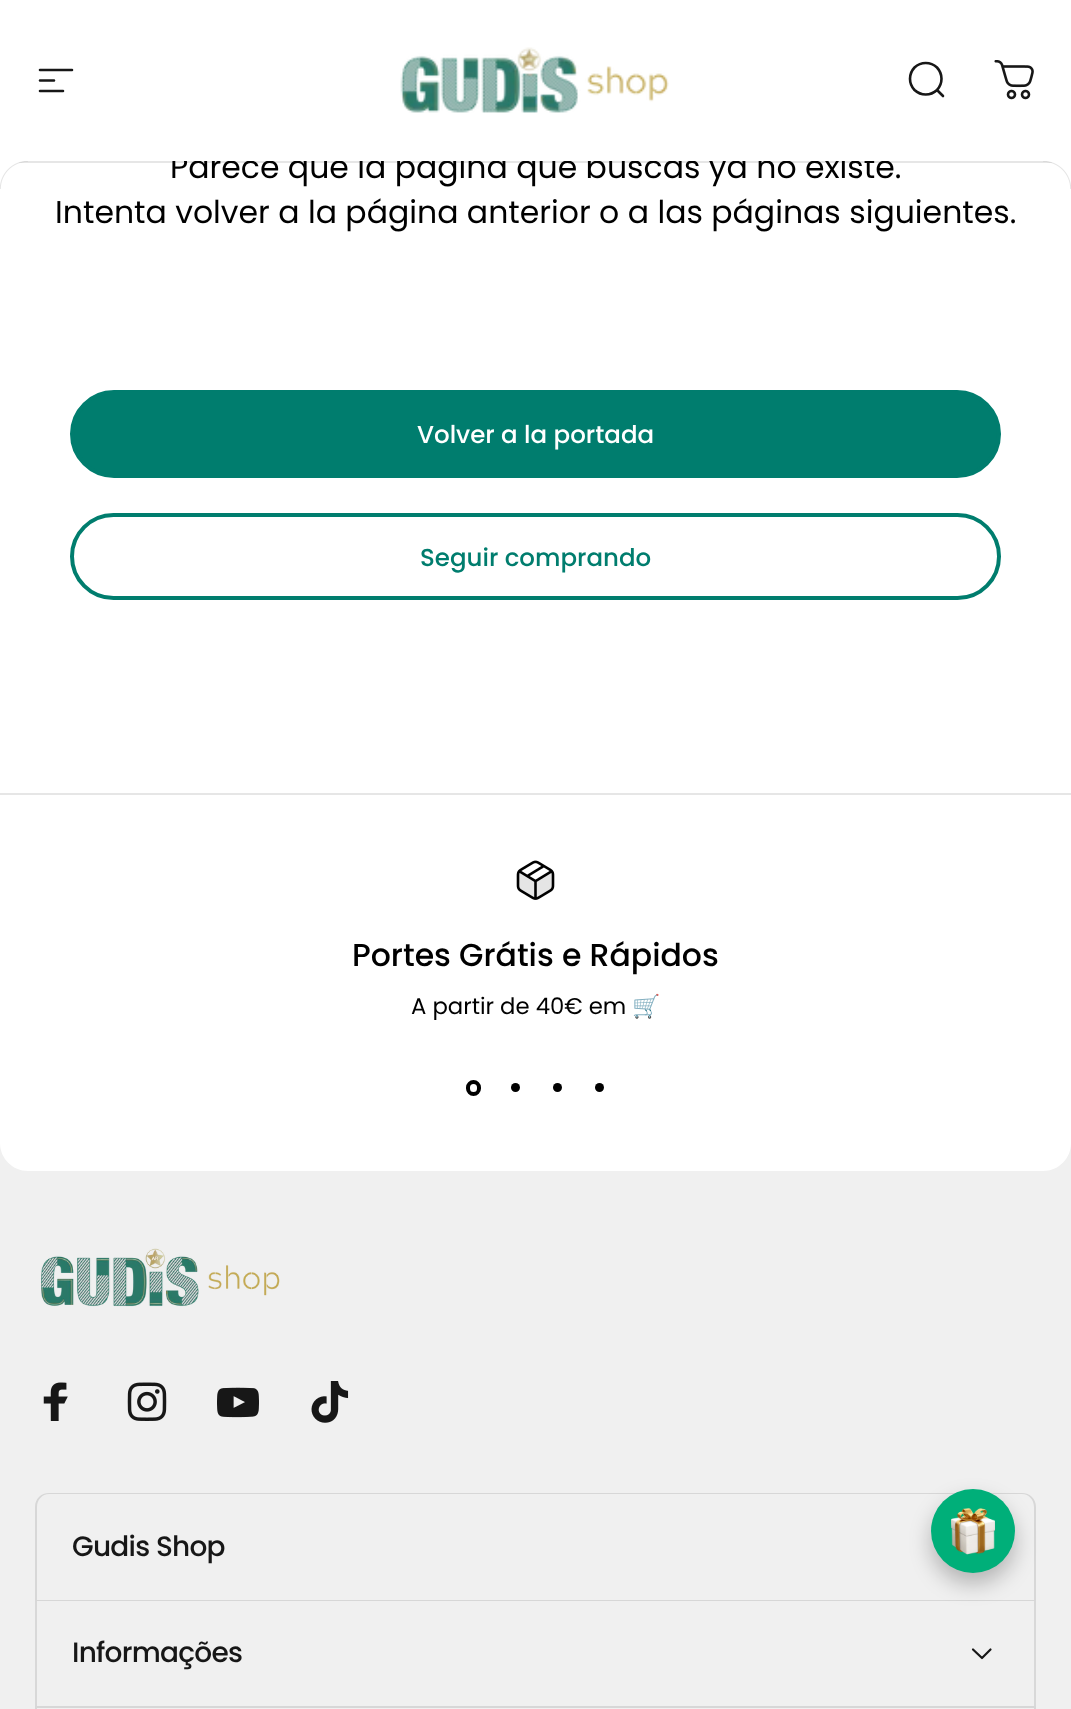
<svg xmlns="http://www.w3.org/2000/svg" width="1071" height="1709">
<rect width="100%" height="100%" fill="#fff"/>
<path d="M40 70h32m-32 10.5h14m-14 10.5h23" fill="none" stroke="#171717" stroke-width="2.6" stroke-linecap="round"/>
<image x="400" y="47" width="269" height="66" href="media/1.png"/>
<path d="M943 96l-6-6m0 0c6-6.5 6-16 0-22.5c-6.5-6-16-6-22.5 0c-6 6.5-6 16 0 22.5c6.5 6 16 6 22.5 0z" fill="none" stroke="#171717" stroke-width="2.6" stroke-linecap="round"/>
<image x="994" y="60" width="40" height="40" href="media/2.png"/>
<text x="170" y="178" style="font-family:Poppins;font-size:31.5px;fill:#000">Parece que la página que buscas ya no existe.</text>
<rect x="172" y="153" width="716" height="8" fill="#fff"/>
<rect x="18" y="161" width="1035" height="2" fill="#1717171c"/>
<image x="0" y="161" width="28" height="28" href="media/3.png"/>
<image x="1043" y="161" width="28" height="28" href="media/4.png"/>
<text x="55" y="223" style="font-family:Poppins;font-size:31.5px;fill:#000">Intenta volver a la página anterior o a las páginas siguientes.</text>
<rect x="72" y="392" width="927" height="84" rx="42" fill="#007d6e" stroke="#007d6e" stroke-width="4"/>
<text x="417" y="443" style="font-family:Poppins;font-size:24.5px;font-weight:500;fill:#fff">Volver a la portada</text>
<rect x="72" y="515" width="927" height="83" rx="41.5" fill="none" stroke="#007d6e" stroke-width="4"/>
<text x="420" y="566" style="font-family:Poppins;font-size:24.5px;font-weight:500;fill:#007d6e">Seguir comprando</text>
<rect y="1143" width="1071" height="566" fill="#f0f0f0"/>
<path d="M0 793h1071v350c0 15.5-12.5 28-28 28h-1015c-15.5 0-28-12.5-28-28z" fill="#fff"/>
<rect y="793" width="1071" height="2" fill="#e6e6e6"/>
<image x="516" y="860" width="39" height="40" href="media/5.png"/>
<text x="352" y="966" style="font-family:Poppins;font-size:31.5px;font-weight:500;fill:#000">Portes Grátis e Rápidos</text>
<text x="411" y="1014" style="font-family:Poppins;font-size:22.75px;fill:#000">A partir de 40€ em</text>
<text x="632" y="1014" style="font-family:Noto Color Emoji;font-size:22.75px;fill:#000">🛒</text>
<rect x="468" y="1082" width="11" height="12" rx="5.5" fill="none" stroke="#000" stroke-width="4"/>
<circle cx="515.5" cy="1087.5" r="4.5" fill="#000"/>
<circle cx="557.5" cy="1087.5" r="4.5" fill="#000"/>
<circle cx="599.5" cy="1087.5" r="4.5" fill="#000"/>
<image x="41" y="1248" width="239" height="59" href="media/6.png"/>
<image x="43" y="1382" width="25" height="39" href="media/7.png"/>
<image x="127" y="1382" width="40" height="39" href="media/8.png"/>
<image x="217" y="1387" width="42" height="31" href="media/9.png"/>
<image x="311" y="1381" width="38" height="42" href="media/10.png"/>
<path d="M49 1493h973c8 0 14 6 14 14v93h-1001v-93c0-8 6-14 14-14zm0 1h973c7 0 12 6 12 13v93h-997v-93c0-7 5-13 12-13z" fill="#d7d7d7" fill-rule="evenodd"/>
<text x="72" y="1556" style="font-family:Poppins;font-size:28px;font-weight:500;letter-spacing:-0.75px;fill:#171717">Gudis Shop</text>
<path d="M35 1600h1001l-2 1h-997z" fill="#d7d7d7"/>
<path d="M1036 1600v106h-2v-105z" fill="#1717171c"/>
<path d="M35 1706v-106l2 1v105z" fill="#1717171c"/>
<text x="72" y="1662" style="font-family:Poppins;font-size:28px;font-weight:500;letter-spacing:-0.75px;fill:#171717">Informações</text>
<path d="M973 1649.5l9 8.5l8.5-8.5" fill="none" stroke="#171717" stroke-width="2.2" stroke-linecap="round" stroke-linejoin="round"/>
<rect x="36" y="1707" width="999" height="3" fill="none" stroke="#d7d7d7" stroke-width="2"/>
<rect x="931" y="1500" width="84" height="84" rx="42" fill="#00000040" filter="blur(10.5px)"/>
<circle cx="973" cy="1531" r="42" fill="#00af79"/>
<image x="951" y="1507" width="45" height="48" href="media/11.png"/>
</svg>
